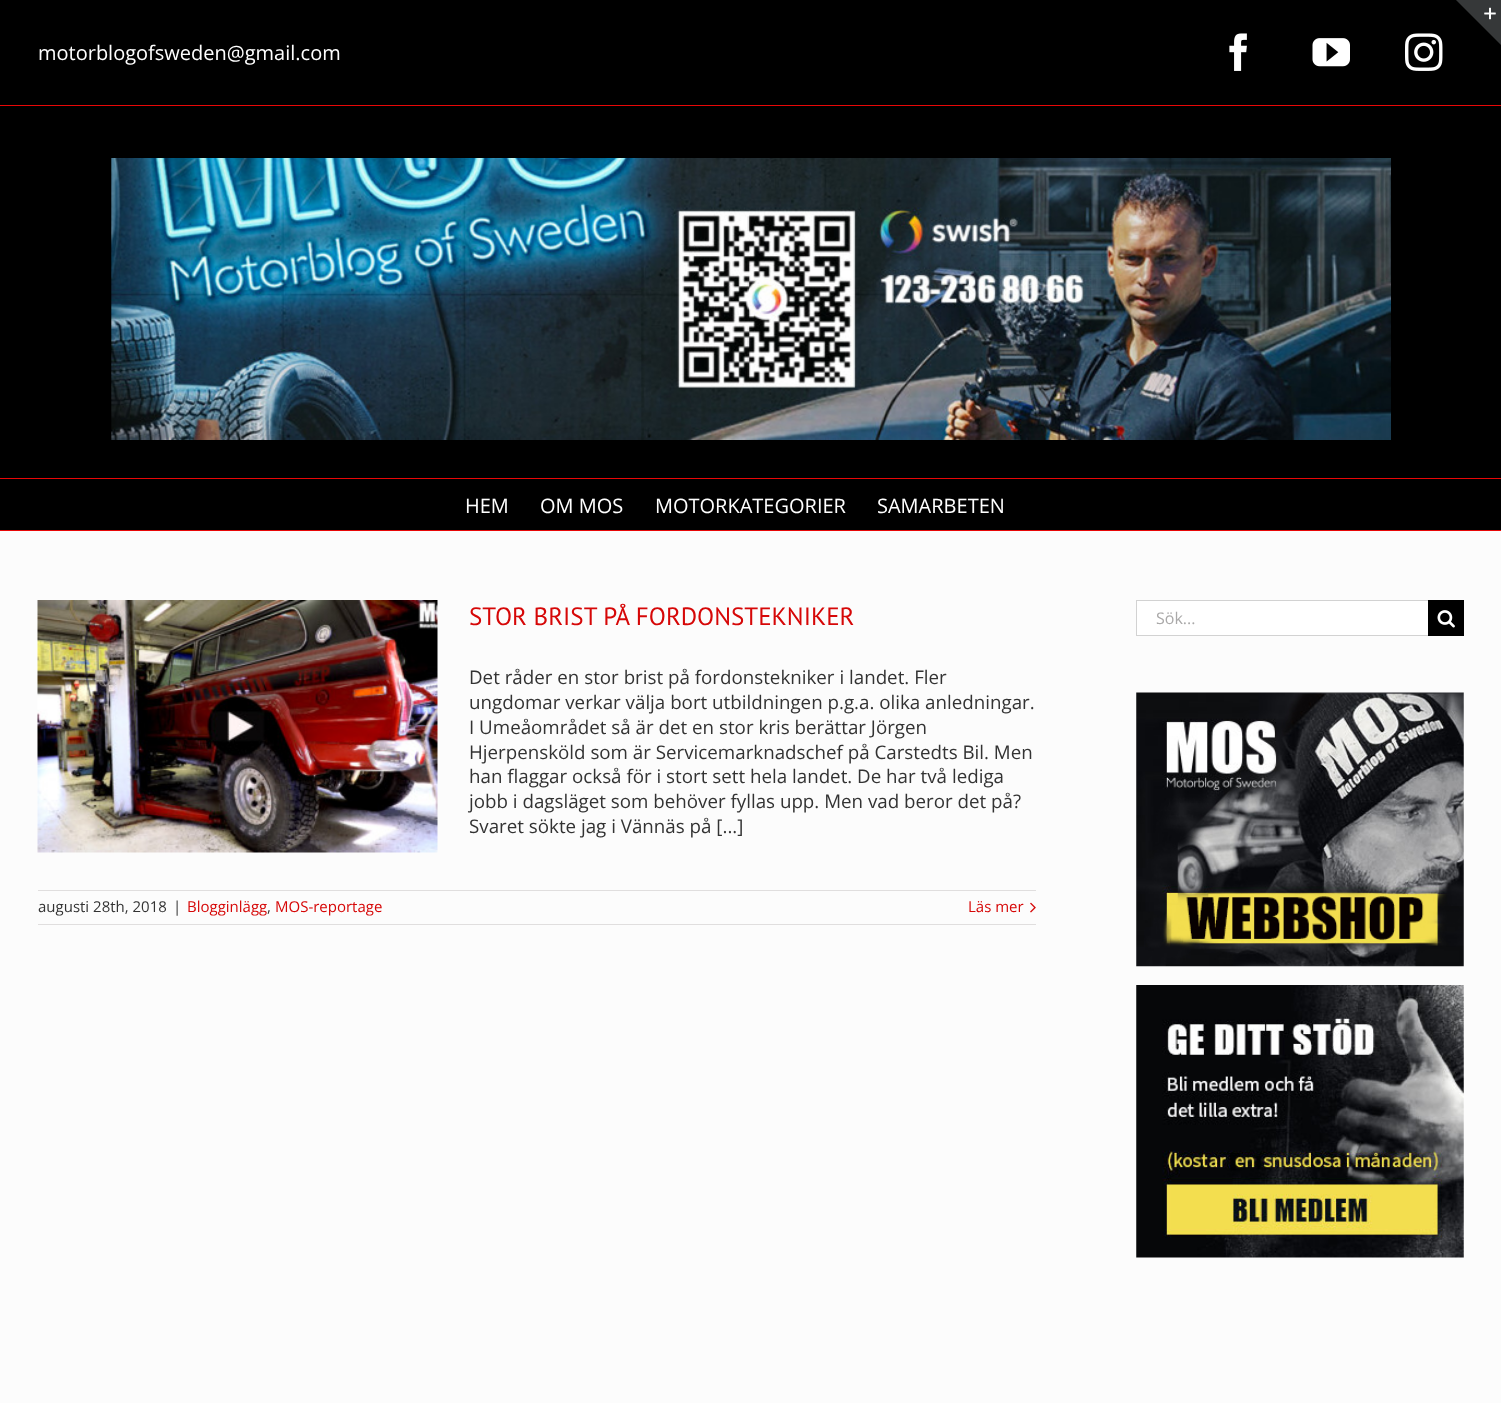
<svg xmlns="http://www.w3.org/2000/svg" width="1501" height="1403">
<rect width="100%" height="100%" fill="#000"/>
<path d="M1456 0h45v45z" fill="#363839"/>
<image x="1484" y="7" width="12" height="13" href="media/1.png"/>
<rect y="105" width="1501" height="1" fill="#e80707"/>
<text x="38" y="60" style="font-family:Open Sans;font-size:20px;fill:#fff">motorblogofsweden@gmail.com</text>
<image x="1229" y="33" width="18" height="38" href="media/2.png"/>
<image x="1312" y="38" width="38" height="29" href="media/3.png"/>
<image x="1405" y="33" width="38" height="38" href="media/4.png"/>
<rect y="478" width="1501" height="1" fill="#e80707"/>
<image x="111" y="158" width="1280" height="282" href="media/5.png"/>
<rect y="530" width="1501" height="1" fill="#e80707"/>
<text x="465" y="513" style="font-family:Open Sans;font-size:20px;fill:#fff">HEM</text>
<text x="540" y="513" style="font-family:Open Sans;font-size:20px;fill:#fff">OM MOS</text>
<text x="655" y="513" style="font-family:Open Sans;font-size:20px;fill:#fff">MOTORKATEGORIER</text>
<text x="877" y="513" style="font-family:Open Sans;font-size:20px;fill:#fff">SAMARBETEN</text>
<rect y="531" width="1501" height="872" fill="#fcfcfc"/>
<image x="37" y="600" width="401" height="253" href="media/6.png"/>
<text x="469" y="625" style="font-family:PT Sans;font-size:25px;fill:#d60707">STOR BRIST PÅ FORDONSTEKNIKER</text>
<text x="469" y="684" style="font-family:Open Sans;font-size:18.75px;fill:#333">Det råder en stor brist på fordonstekniker i landet. Fler</text>
<text x="469" y="709" style="font-family:Open Sans;font-size:18.75px;fill:#333">ungdomar verkar välja bort utbildningen p.g.a. olika anledningar.</text>
<text x="469" y="734" style="font-family:Open Sans;font-size:18.75px;fill:#333">I Umeåområdet så är det en stor kris berättar Jörgen</text>
<text x="469" y="759" style="font-family:Open Sans;font-size:18.75px;fill:#333">Hjerpensköld som är Servicemarknadschef på Carstedts Bil. Men</text>
<text x="469" y="783" style="font-family:Open Sans;font-size:18.75px;fill:#333">han flaggar också för i stort sett hela landet. De har två lediga</text>
<text x="469" y="808" style="font-family:Open Sans;font-size:18.75px;fill:#333">jobb i dagsläget som behöver fyllas upp. Men vad beror det på?</text>
<text x="469" y="833" style="font-family:Open Sans;font-size:18.75px;fill:#333">Svaret sökte jag i Vännäs på [...]</text>
<rect x="38" y="890" width="998" height="1" fill="#e0dede"/>
<rect x="38" y="924" width="998" height="1" fill="#e0dede"/>
<text x="38" y="912" style="font-family:Open Sans;font-size:15px;fill:#333">augusti 28th, 2018</text>
<text x="173" y="912" style="font-family:Open Sans;font-size:15px;fill:#333">|</text>
<text x="187" y="912" style="font-family:Open Sans;font-size:15px;fill:#d60707">Blogginlägg</text>
<text x="267" y="912" style="font-family:Open Sans;font-size:15px;fill:#333">,</text>
<text x="275" y="912" style="font-family:Open Sans;font-size:15px;fill:#d60707">MOS-reportage</text>
<text x="968" y="912" style="font-family:Open Sans;font-size:15px;fill:#d60707">Läs mer</text>
<image x="1030" y="902" width="6" height="11" href="media/7.png"/>
<rect x="1137" y="601" width="291" height="34" fill="#fff"/>
<rect x="1136" y="600" width="292" height="1" fill="#d2d2d2"/>
<rect x="1136" y="635" width="292" height="1" fill="#d2d2d2"/>
<rect x="1136" y="600" width="1" height="36" fill="#d2d2d2"/>
<text x="1156" y="624" style="font-family:Open Sans;font-size:16px;fill:#aaa9a9">Sök...</text>
<rect x="1428" y="600" width="36" height="36" fill="#000"/>
<image x="1437" y="610" width="18" height="18" href="media/8.png"/>
<image x="1136" y="692" width="328" height="275" href="media/9.png"/>
<image x="1136" y="985" width="328" height="273" href="media/10.png"/>
</svg>
